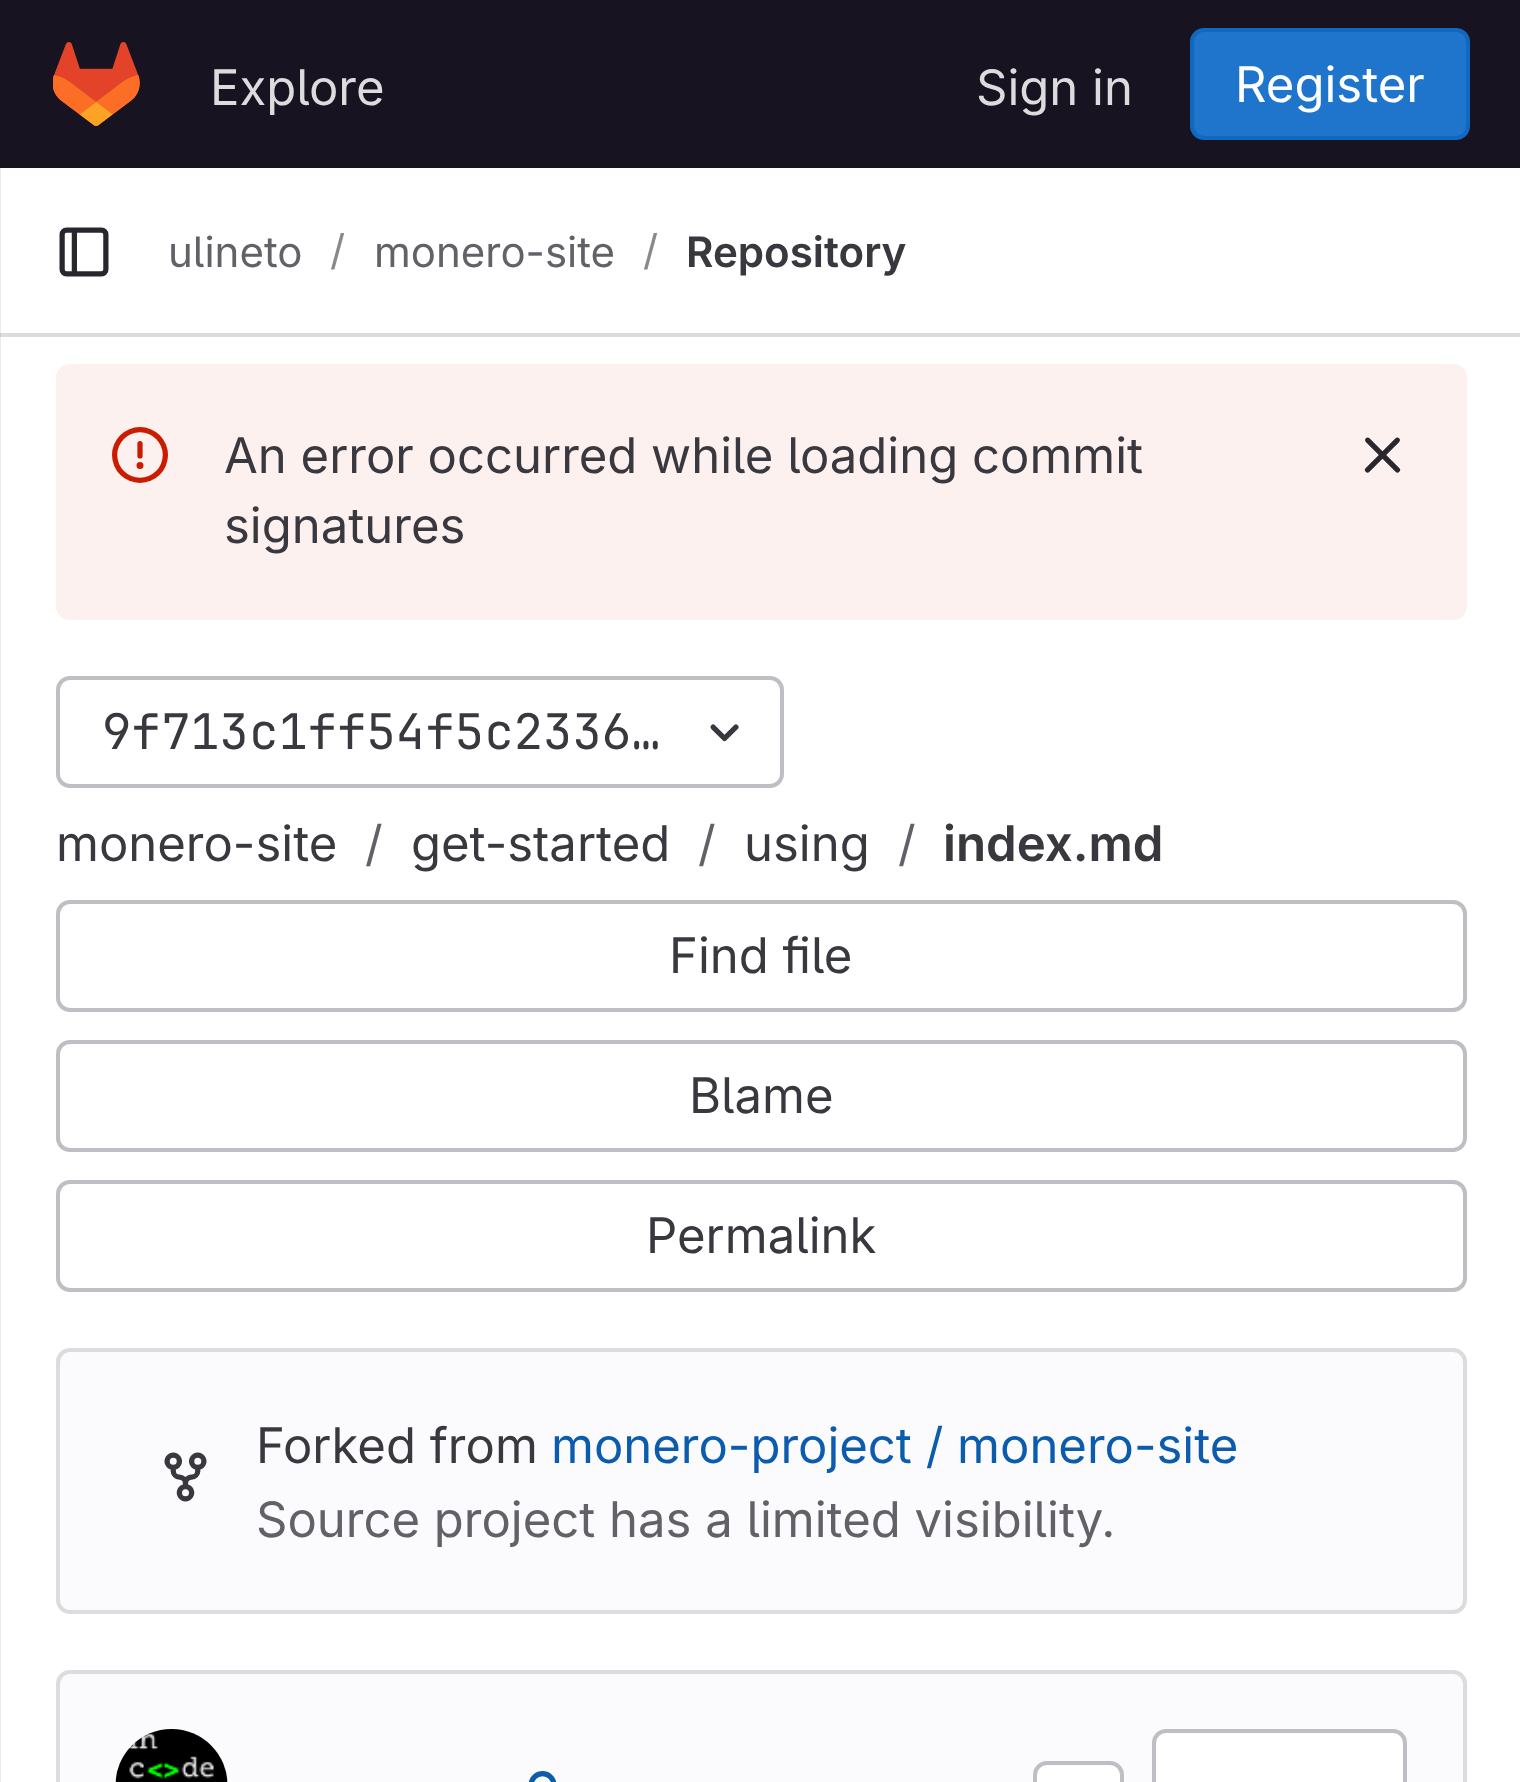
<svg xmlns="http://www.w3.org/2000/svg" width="1520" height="1782">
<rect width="100%" height="100%" fill="#fff"/>
<rect y="168" width="1" height="1614" fill="#ebebeb"/>
<rect width="1520" height="168" fill="#171321"/>
<image x="53" y="42" width="87" height="84" href="media/1.png"/>
<text x="210" y="105" style="font-family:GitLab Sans;font-size:49px;fill:#dcdcde">Explore</text>
<text x="976" y="105" style="font-family:GitLab Sans;font-size:49px;fill:#dcdcde">Sign in</text>
<rect x="1192" y="30" width="276" height="108" rx="12" fill="#1f75cb" stroke="#1068bf" stroke-width="4"/>
<text x="1235" y="102" style="font-family:GitLab Sans;font-size:49px;fill:#fff">Register</text>
<rect y="333" width="1520" height="4" fill="#dcdcde"/>
<rect y="333" width="1" height="4" fill="#cbcbcd"/>
<image x="59" y="227" width="50" height="50" href="media/2.png"/>
<text x="168" y="267" style="font-family:GitLab Sans;font-size:42px;fill:#626168">ulineto</text>
<text x="330" y="265" style="font-family:GitLab Sans;font-size:42px;fill:#89888d">/</text>
<text x="374" y="267" style="font-family:GitLab Sans;font-size:42px;fill:#626168">monero-site</text>
<text x="643" y="265" style="font-family:GitLab Sans;font-size:42px;fill:#89888d">/</text>
<text x="686" y="267" style="font-family:GitLab Sans;font-size:42px;font-weight:600;fill:#3a383f">Repository</text>
<rect x="56" y="364" width="1411" height="256" rx="14" fill="#fcf1ef"/>
<image x="112" y="427" width="56" height="56" href="media/3.png"/>
<text x="224" y="473" style="font-family:GitLab Sans;font-size:49px;fill:#3a383f">An error occurred while loading commit</text>
<text x="224" y="543" style="font-family:GitLab Sans;font-size:49px;fill:#3a383f">signatures</text>
<image x="1364" y="437" width="37" height="36" href="media/4.png"/>
<rect x="58" y="678" width="724" height="108" rx="12" fill="none" stroke="#bfbfc3" stroke-width="4"/>
<text x="102" y="749" style="font-family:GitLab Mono;font-size:49px;fill:#3a383f">9f713c1ff54f5c2336…</text>
<image x="710" y="724" width="29" height="18" href="media/5.png"/>
<text x="56" y="861" style="font-family:GitLab Sans;font-size:49px;fill:#3a383f">monero-site</text>
<text x="365" y="861" style="font-family:GitLab Sans;font-size:49px;fill:#626168">/</text>
<text x="411" y="861" style="font-family:GitLab Sans;font-size:49px;fill:#3a383f">get-started</text>
<text x="698" y="861" style="font-family:GitLab Sans;font-size:49px;fill:#626168">/</text>
<text x="744" y="861" style="font-family:GitLab Sans;font-size:49px;fill:#3a383f">using</text>
<text x="898" y="861" style="font-family:GitLab Sans;font-size:49px;fill:#626168">/</text>
<text x="943" y="861" style="font-family:GitLab Sans;font-size:49px;font-weight:600;fill:#3a383f">index.md</text>
<rect x="58" y="902" width="1407" height="108" rx="12" fill="none" stroke="#bfbfc3" stroke-width="4"/>
<text x="669" y="973" style="font-family:GitLab Sans;font-size:49px;fill:#3a383f">Find file</text>
<rect x="58" y="1042" width="1407" height="108" rx="12" fill="none" stroke="#bfbfc3" stroke-width="4"/>
<text x="689" y="1113" style="font-family:GitLab Sans;font-size:49px;fill:#3a383f">Blame</text>
<rect x="58" y="1182" width="1407" height="108" rx="12" fill="none" stroke="#bfbfc3" stroke-width="4"/>
<text x="646" y="1253" style="font-family:GitLab Sans;font-size:49px;fill:#3a383f">Permalink</text>
<rect x="58" y="1350" width="1407" height="262" rx="12" fill="#fbfafd" stroke="#dcdcde" stroke-width="4"/>
<image x="164" y="1452" width="43" height="50" href="media/6.png"/>
<text x="256" y="1463" style="font-family:GitLab Sans;font-size:49px;fill:#3a383f">Forked from</text>
<text x="551" y="1463" style="font-family:GitLab Sans;font-size:49px;fill:#0b5cad">monero-project / monero-site</text>
<text x="256" y="1537" style="font-family:GitLab Sans;font-size:49px;fill:#626168">Source project has a limited visibility.</text>
<rect x="58" y="1672" width="1407" height="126" rx="12" fill="#fbfafd" stroke="#dcdcde" stroke-width="4"/>
<circle cx="172" cy="1785" r="54" fill="none" stroke="#e7e6e9" stroke-width="4"/>
<image x="115" y="1729" width="113" height="53" href="media/7.png"/>
<image x="529" y="1771" width="27" height="11" href="media/8.png"/>
<rect x="1035" y="1763" width="87" height="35" rx="12" fill="#fff" stroke="#bfbfc3" stroke-width="4"/>
<rect x="1154" y="1731" width="251" height="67" rx="12" fill="#fff" stroke="#bfbfc3" stroke-width="4"/>
</svg>
